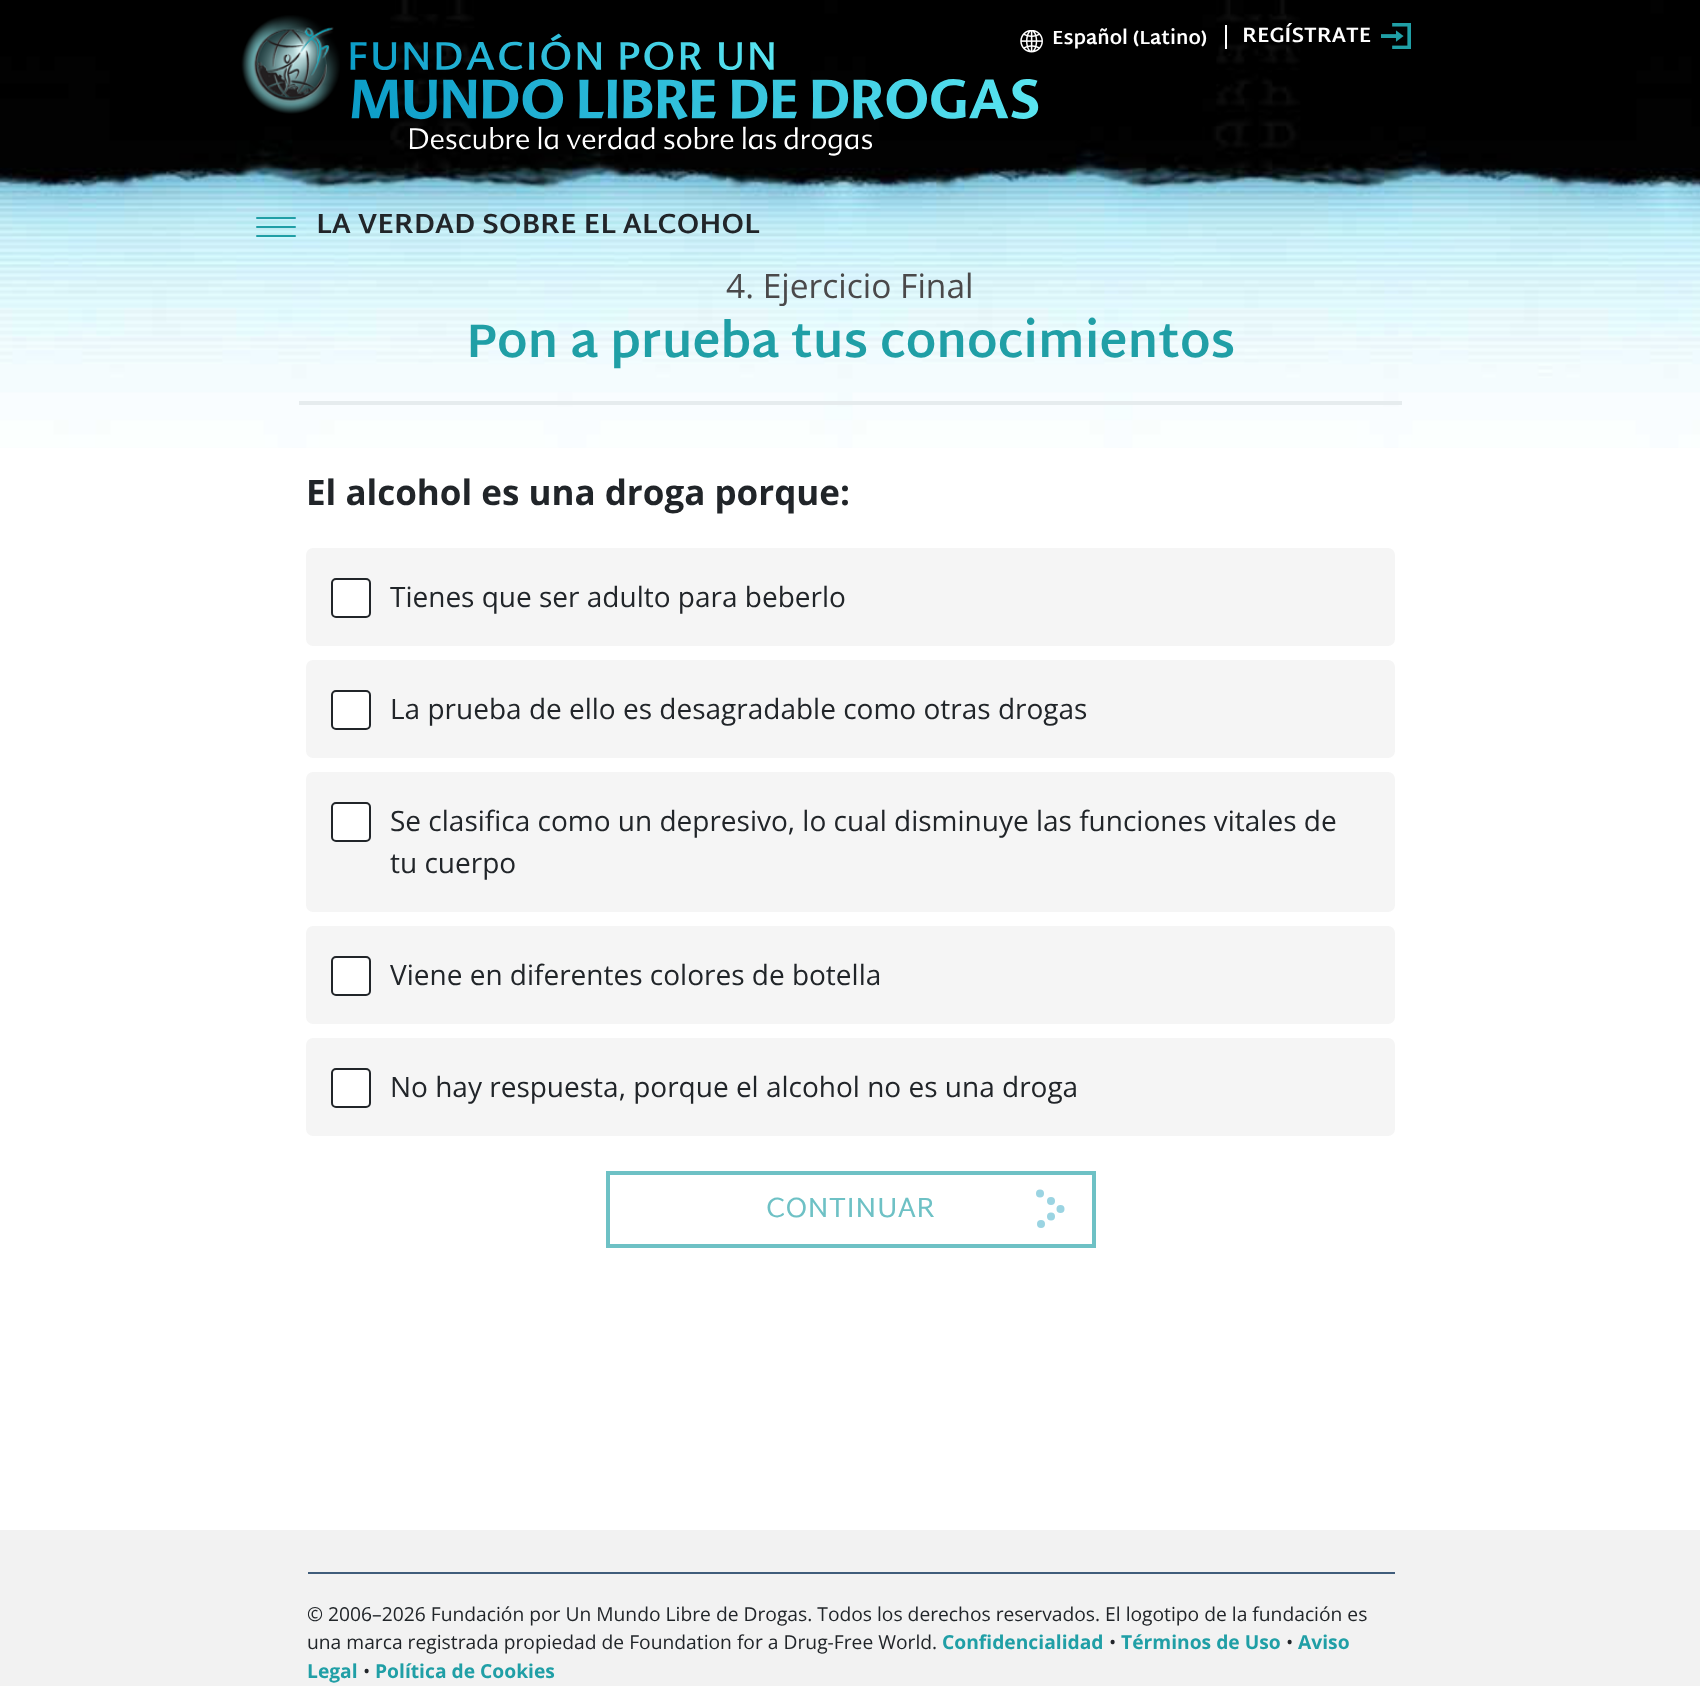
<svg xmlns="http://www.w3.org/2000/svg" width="1700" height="1686">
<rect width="100%" height="100%" fill="#fff"/>
<image x="0" y="0" width="1700" height="448" href="media/1.png"/>
<image x="241" y="15" width="99" height="99" href="media/2.png"/>
<image x="350" y="33" width="689" height="123" href="media/3.png"/>
<image x="1020" y="30" width="23" height="23" href="media/4.png"/>
<text x="1052" y="44" style="font-family:Martel Sans;font-size:19.25px;font-weight:bold;fill:#fff">Español (Latino)</text>
<rect x="1225" y="25" width="2" height="24" fill="#fff"/>
<text x="1242" y="42" style="font-family:Martel Sans;font-size:21px;font-weight:bold;fill:#fff">REGÍSTRATE</text>
<image x="1381" y="23" width="30" height="26" href="media/5.png"/>
<rect x="256" y="226" width="40" height="2" rx="1" fill="#209fa6"/>
<rect x="256" y="217" width="40" height="2" rx="1" fill="#209fa6"/>
<rect x="256" y="235" width="40" height="2" rx="1" fill="#209fa6"/>
<text x="316" y="233" style="font-family:Martel Sans;font-size:28px;font-weight:bold;fill:#212529">LA VERDAD SOBRE EL ALCOHOL</text>
<text x="726" y="298" style="font-family:Open Sans;font-size:33.5px;fill:#4a494a">4. Ejercicio Final</text>
<rect x="299" y="401" width="1103" height="4" fill="#e6ecee"/>
<text x="466" y="357" style="font-family:Martel Sans;font-size:47.6px;font-weight:bold;fill:#209fa6">Pon a prueba tus conocimientos</text>
<text x="306" y="505" style="font-family:Open Sans;font-size:35px;font-weight:bold;fill:#212529">El alcohol es una droga porque:</text>
<rect x="306" y="548" width="1089" height="98" rx="7" fill="#f5f5f5"/>
<rect x="332" y="579" width="38" height="38" rx="4" fill="#fff" stroke="#212529" stroke-width="2"/>
<text x="390" y="607" style="font-family:Open Sans;font-size:28px;fill:#212529">Tienes que ser adulto para beberlo</text>
<rect x="306" y="660" width="1089" height="98" rx="7" fill="#f5f5f5"/>
<rect x="332" y="691" width="38" height="38" rx="4" fill="#fff" stroke="#212529" stroke-width="2"/>
<text x="390" y="719" style="font-family:Open Sans;font-size:28px;fill:#212529">La prueba de ello es desagradable como otras drogas</text>
<rect x="306" y="772" width="1089" height="140" rx="7" fill="#f5f5f5"/>
<rect x="332" y="803" width="38" height="38" rx="4" fill="#fff" stroke="#212529" stroke-width="2"/>
<text x="390" y="831" style="font-family:Open Sans;font-size:28px;fill:#212529">Se clasifica como un depresivo, lo cual disminuye las funciones vitales de</text>
<text x="390" y="873" style="font-family:Open Sans;font-size:28px;fill:#212529">tu cuerpo</text>
<rect x="306" y="926" width="1089" height="98" rx="7" fill="#f5f5f5"/>
<rect x="332" y="957" width="38" height="38" rx="4" fill="#fff" stroke="#212529" stroke-width="2"/>
<text x="390" y="985" style="font-family:Open Sans;font-size:28px;fill:#212529">Viene en diferentes colores de botella</text>
<rect x="306" y="1038" width="1089" height="98" rx="7" fill="#f5f5f5"/>
<rect x="332" y="1069" width="38" height="38" rx="4" fill="#fff" stroke="#212529" stroke-width="2"/>
<text x="390" y="1097" style="font-family:Open Sans;font-size:28px;fill:#212529">No hay respuesta, porque el alcohol no es una droga</text>
<rect x="608" y="1173" width="486" height="73" fill="none" stroke="#6ec1c5" stroke-width="4"/>
<text x="766" y="1217" style="font-family:Martel Sans;font-size:28px;fill:#6ec1c5">CONTINUAR</text>
<circle cx="1040" cy="1193.5" r="4" fill="#9bd4e2"/>
<circle cx="1051" cy="1201" r="4" fill="#9bd4e2"/>
<circle cx="1060.5" cy="1209" r="4" fill="#9bd4e2"/>
<circle cx="1051" cy="1216.5" r="4" fill="#9bd4e2"/>
<circle cx="1041" cy="1224" r="4" fill="#9bd4e2"/>
<rect y="1530" width="1700" height="156" fill="#f2f2f2"/>
<rect x="308" y="1572" width="1087" height="2" fill="#405d7b"/>
<text x="307" y="1621" style="font-family:Open Sans;font-size:19.25px;fill:#212529">© 2006–2026 Fundación por Un Mundo Libre de Drogas. Todos los derechos reservados. El logotipo de la fundación es</text>
<text x="307" y="1649" style="font-family:Open Sans;font-size:19.25px;fill:#212529">una marca registrada propiedad de Foundation for a Drug-Free World.</text>
<text x="942" y="1649" style="font-family:Open Sans;font-size:19.25px;font-weight:bold;fill:#209fa6">Confidencialidad</text>
<text x="1109" y="1649" style="font-family:Open Sans;font-size:19.25px;fill:#212529">•</text>
<text x="1121" y="1649" style="font-family:Open Sans;font-size:19.25px;font-weight:bold;fill:#209fa6">Términos de Uso</text>
<text x="1286" y="1649" style="font-family:Open Sans;font-size:19.25px;fill:#212529">•</text>
<text x="1298" y="1649" style="font-family:Open Sans;font-size:19.25px;font-weight:bold;fill:#209fa6">Aviso</text>
<text x="307" y="1678" style="font-family:Open Sans;font-size:19.25px;font-weight:bold;fill:#209fa6">Legal</text>
<text x="363" y="1678" style="font-family:Open Sans;font-size:19.25px;fill:#212529">•</text>
<text x="375" y="1678" style="font-family:Open Sans;font-size:19.25px;font-weight:bold;fill:#209fa6">Política de Cookies</text>
</svg>
